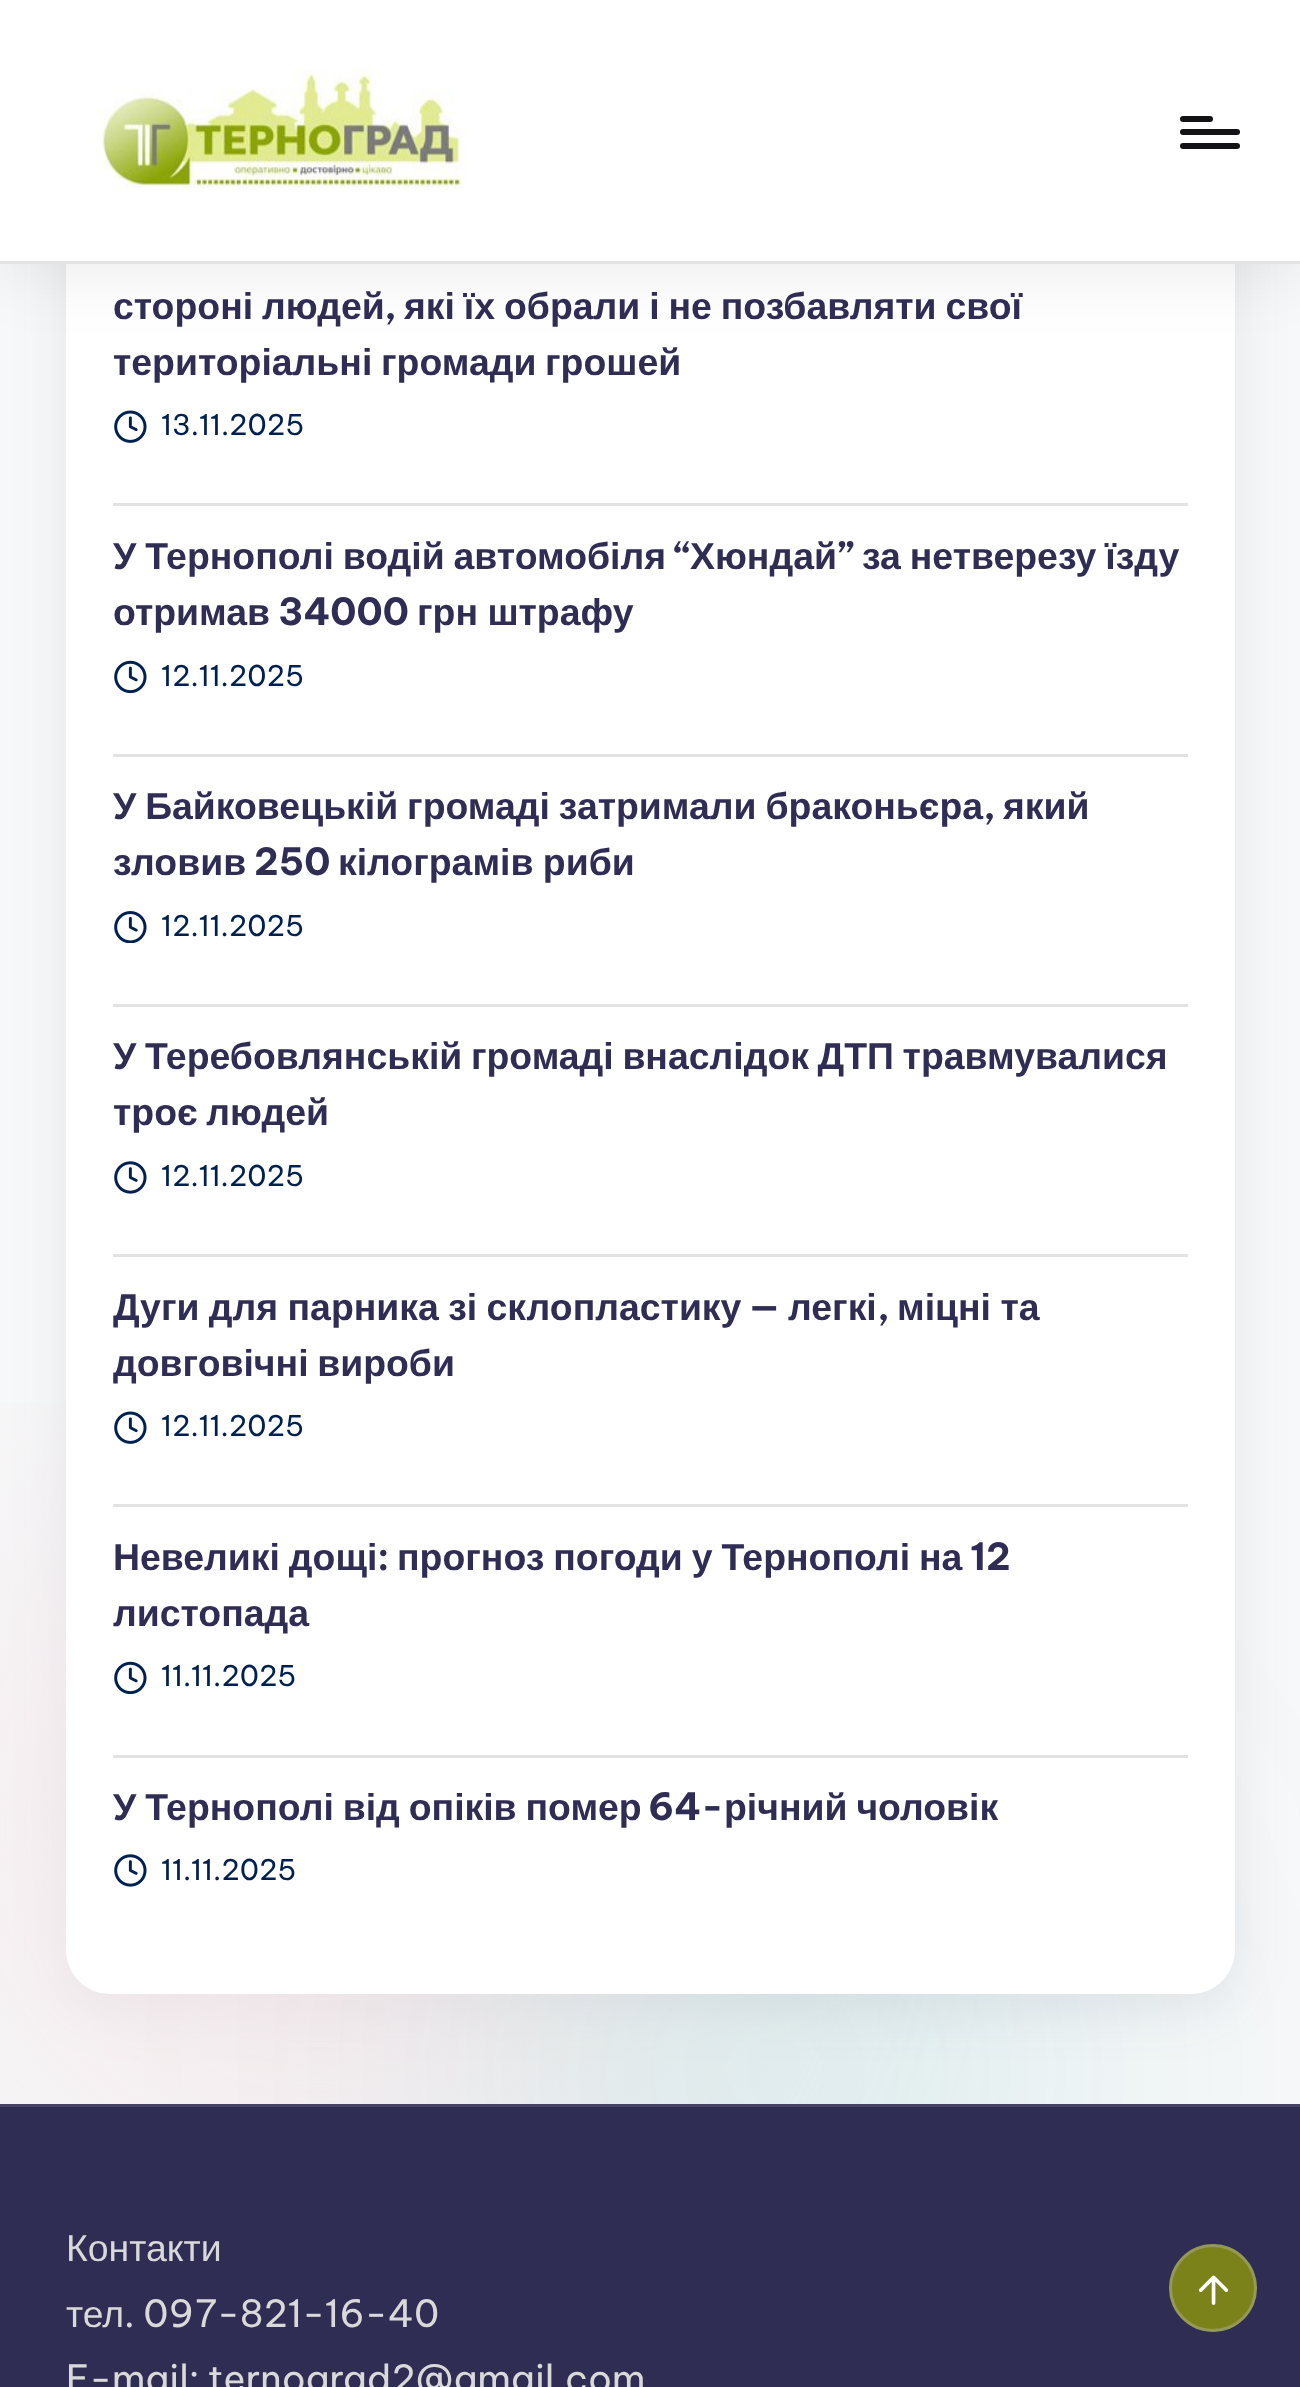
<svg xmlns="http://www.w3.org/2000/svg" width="1300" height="2387">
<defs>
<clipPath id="clip1"><rect x="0" y="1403" width="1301" height="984"/></clipPath>
</defs>
<rect width="100%" height="100%" fill="#f7f8f9"/>
<rect x="66" y="-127" width="1169" height="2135" rx="44" fill="#4543601a" filter="blur(27.5px)"/>
<g clip-path="url(#clip1)">
<rect y="1513" width="633" height="632" rx="316" fill="#f4e5e8" filter="blur(176px)"/>
</g>
<rect x="457" y="1755" width="635" height="632" rx="316" fill="#04868b1a" filter="blur(176px)"/>
<rect x="66" y="-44" width="1169" height="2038" rx="44" fill="#fff"/>
<rect y="8" width="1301" height="264" fill="#00000014" filter="blur(33px)"/>
<rect width="1300" height="261" fill="#fff"/>
<rect y="261" width="1300" height="3" fill="#e3e3e3"/>
<image x="94" y="69" width="373" height="121" href="media/1.png"/>
<rect x="1180" y="129" width="60" height="6" rx="3" fill="#131315"/>
<rect x="1180" y="116" width="33" height="6" rx="3" fill="#131315"/>
<rect x="1180" y="143" width="60" height="6" rx="3" fill="#131315"/>
<text x="113" y="319" word-spacing="-1.5" style="font-family:Liberation Sans;font-size:37.4px;font-weight:bold;fill:#302d55">стороні людей</text>
<text x="384" y="319" style="font-family:Be Vietnam Pro;font-size:37.4px;font-weight:bold;fill:#302d55">,</text>
<text x="404" y="319" word-spacing="-1.5" style="font-family:Liberation Sans;font-size:37.4px;font-weight:bold;fill:#302d55">які їх обрали і не позбавляти свої</text>
<text x="113" y="375" word-spacing="-1.75" style="font-family:Liberation Sans;font-size:37.4px;font-weight:bold;fill:#302d55">територіальні громади грошей</text>
<image x="114" y="410" width="33" height="33" href="media/2.png"/>
<text x="161" y="435" style="font-family:Be Vietnam Pro;font-size:28.5px;fill:#002050">13.11.2025</text>
<rect x="113" y="503" width="1075" height="3" fill="#e3e3e3"/>
<text x="113" y="569" word-spacing="-1.5" style="font-family:Liberation Sans;font-size:37.4px;font-weight:bold;fill:#302d55">У Тернополі водій автомобіля</text>
<text x="674" y="569" style="font-family:Be Vietnam Pro;font-size:37.4px;font-weight:bold;fill:#302d55">“</text>
<text x="690" y="569" style="font-family:Liberation Sans;font-size:37.4px;font-weight:bold;fill:#302d55">Хюндай</text>
<text x="837" y="569" style="font-family:Be Vietnam Pro;font-size:37.4px;font-weight:bold;fill:#302d55">”</text>
<text x="862" y="569" word-spacing="-1.5" style="font-family:Liberation Sans;font-size:37.4px;font-weight:bold;fill:#302d55">за нетверезу їзду</text>
<text x="113" y="625" style="font-family:Liberation Sans;font-size:37.4px;font-weight:bold;fill:#302d55">отримав</text>
<text x="278" y="625" style="font-family:Be Vietnam Pro;font-size:37.4px;font-weight:bold;fill:#302d55">34000</text>
<text x="417" y="625" word-spacing="-1" style="font-family:Liberation Sans;font-size:37.4px;font-weight:bold;fill:#302d55">грн штрафу</text>
<image x="114" y="660" width="33" height="34" href="media/3.png"/>
<text x="161" y="686" style="font-family:Be Vietnam Pro;font-size:28.5px;fill:#002050">12.11.2025</text>
<rect x="113" y="754" width="1075" height="3" fill="#e3e3e3"/>
<text x="113" y="819" word-spacing="-1.5" style="font-family:Liberation Sans;font-size:37.4px;font-weight:bold;fill:#302d55">У Байковецькій громаді затримали браконьєра</text>
<text x="983" y="819" style="font-family:Be Vietnam Pro;font-size:37.4px;font-weight:bold;fill:#302d55">,</text>
<text x="1003" y="819" style="font-family:Liberation Sans;font-size:37.4px;font-weight:bold;fill:#302d55">який</text>
<text x="113" y="875" style="font-family:Liberation Sans;font-size:37.4px;font-weight:bold;fill:#302d55">зловив</text>
<text x="254" y="875" style="font-family:Be Vietnam Pro;font-size:37.4px;font-weight:bold;fill:#302d55">250</text>
<text x="338" y="875" word-spacing="-1" style="font-family:Liberation Sans;font-size:37.4px;font-weight:bold;fill:#302d55">кілограмів риби</text>
<image x="114" y="911" width="33" height="32" href="media/4.png"/>
<text x="161" y="936" style="font-family:Be Vietnam Pro;font-size:28.5px;fill:#002050">12.11.2025</text>
<rect x="113" y="1004" width="1075" height="3" fill="#e3e3e3"/>
<text x="113" y="1069" word-spacing="-1.75" style="font-family:Liberation Sans;font-size:37.4px;font-weight:bold;fill:#302d55">У Теребовлянській громаді внаслідок ДТП травмувалися</text>
<text x="113" y="1125" word-spacing="-1.75" style="font-family:Liberation Sans;font-size:37.4px;font-weight:bold;fill:#302d55">троє людей</text>
<image x="114" y="1161" width="33" height="33" href="media/5.png"/>
<text x="161" y="1186" style="font-family:Be Vietnam Pro;font-size:28.5px;fill:#002050">12.11.2025</text>
<rect x="113" y="1254" width="1075" height="3" fill="#e3e3e3"/>
<text x="113" y="1320" word-spacing="-1" style="font-family:Liberation Sans;font-size:37.4px;font-weight:bold;fill:#302d55">Дуги для парника зі склопластику</text>
<text x="748" y="1320" style="font-family:Be Vietnam Pro;font-size:37.4px;font-weight:bold;fill:#302d55">—</text>
<text x="788" y="1320" style="font-family:Liberation Sans;font-size:37.4px;font-weight:bold;fill:#302d55">легкі</text>
<text x="897" y="1320" word-spacing="-1" style="font-family:Liberation Sans;font-size:37.4px;font-weight:bold;fill:#302d55">міцні та</text>
<text x="877" y="1320" style="font-family:Be Vietnam Pro;font-size:37.4px;font-weight:bold;fill:#302d55">,</text>
<text x="113" y="1376" word-spacing="-1.75" style="font-family:Liberation Sans;font-size:37.4px;font-weight:bold;fill:#302d55">довговічні вироби</text>
<image x="114" y="1411" width="33" height="33" href="media/2.png"/>
<text x="161" y="1436" style="font-family:Be Vietnam Pro;font-size:28.5px;fill:#002050">12.11.2025</text>
<rect x="113" y="1504" width="1075" height="3" fill="#e3e3e3"/>
<text x="113" y="1570" word-spacing="-1.5" style="font-family:Liberation Sans;font-size:37.4px;font-weight:bold;fill:#302d55">Невеликі дощі</text>
<text x="377" y="1570" style="font-family:Be Vietnam Pro;font-size:37.4px;font-weight:bold;fill:#302d55">:</text>
<text x="397" y="1570" word-spacing="-1.5" style="font-family:Liberation Sans;font-size:37.4px;font-weight:bold;fill:#302d55">прогноз погоди у Тернополі на</text>
<text x="970" y="1570" style="font-family:Be Vietnam Pro;font-size:37.4px;font-weight:bold;fill:#302d55">12</text>
<text x="113" y="1626" style="font-family:Liberation Sans;font-size:37.4px;font-weight:bold;fill:#302d55">листопада</text>
<image x="114" y="1661" width="33" height="33" href="media/6.png"/>
<text x="161" y="1686" style="font-family:Be Vietnam Pro;font-size:28.5px;fill:#002050">11.11.2025</text>
<rect x="113" y="1755" width="1075" height="3" fill="#e3e3e3"/>
<text x="113" y="1820" word-spacing="-1.5" style="font-family:Liberation Sans;font-size:37.4px;font-weight:bold;fill:#302d55">У Тернополі від опіків помер</text>
<text x="648" y="1820" style="font-family:Be Vietnam Pro;font-size:37.4px;font-weight:bold;fill:#302d55">64-</text>
<text x="724" y="1820" word-spacing="-1.5" style="font-family:Liberation Sans;font-size:37.4px;font-weight:bold;fill:#302d55">річний чоловік</text>
<image x="114" y="1854" width="33" height="33" href="media/5.png"/>
<text x="161" y="1880" style="font-family:Be Vietnam Pro;font-size:28.5px;fill:#002050">11.11.2025</text>
<rect y="2107" width="1300" height="280" fill="#302d55"/>
<rect y="2104" width="1300" height="3" fill="#454266"/>
<text x="66" y="2261" style="font-family:Liberation Sans;font-size:37.4px;fill:#d9d9d9">Контакти</text>
<text x="66" y="2327" style="font-family:Liberation Sans;font-size:37.4px;fill:#d9d9d9">тел</text>
<text x="124" y="2327" style="font-family:Be Vietnam Pro;font-size:37.4px;fill:#d9d9d9">. 097-821-16-40</text>
<text x="66" y="2392" style="font-family:Be Vietnam Pro;font-size:37.4px;fill:#d9d9d9">E-mail: ternograd2@gmail.com</text>
<circle cx="1213" cy="2288" r="44" fill="#7c821a"/>
<circle cx="1213" cy="2288" r="42.5" fill="none" stroke="#b9b9b966" stroke-width="3"/>
<image x="1198" y="2275" width="31" height="30" href="media/7.png"/>
</svg>
